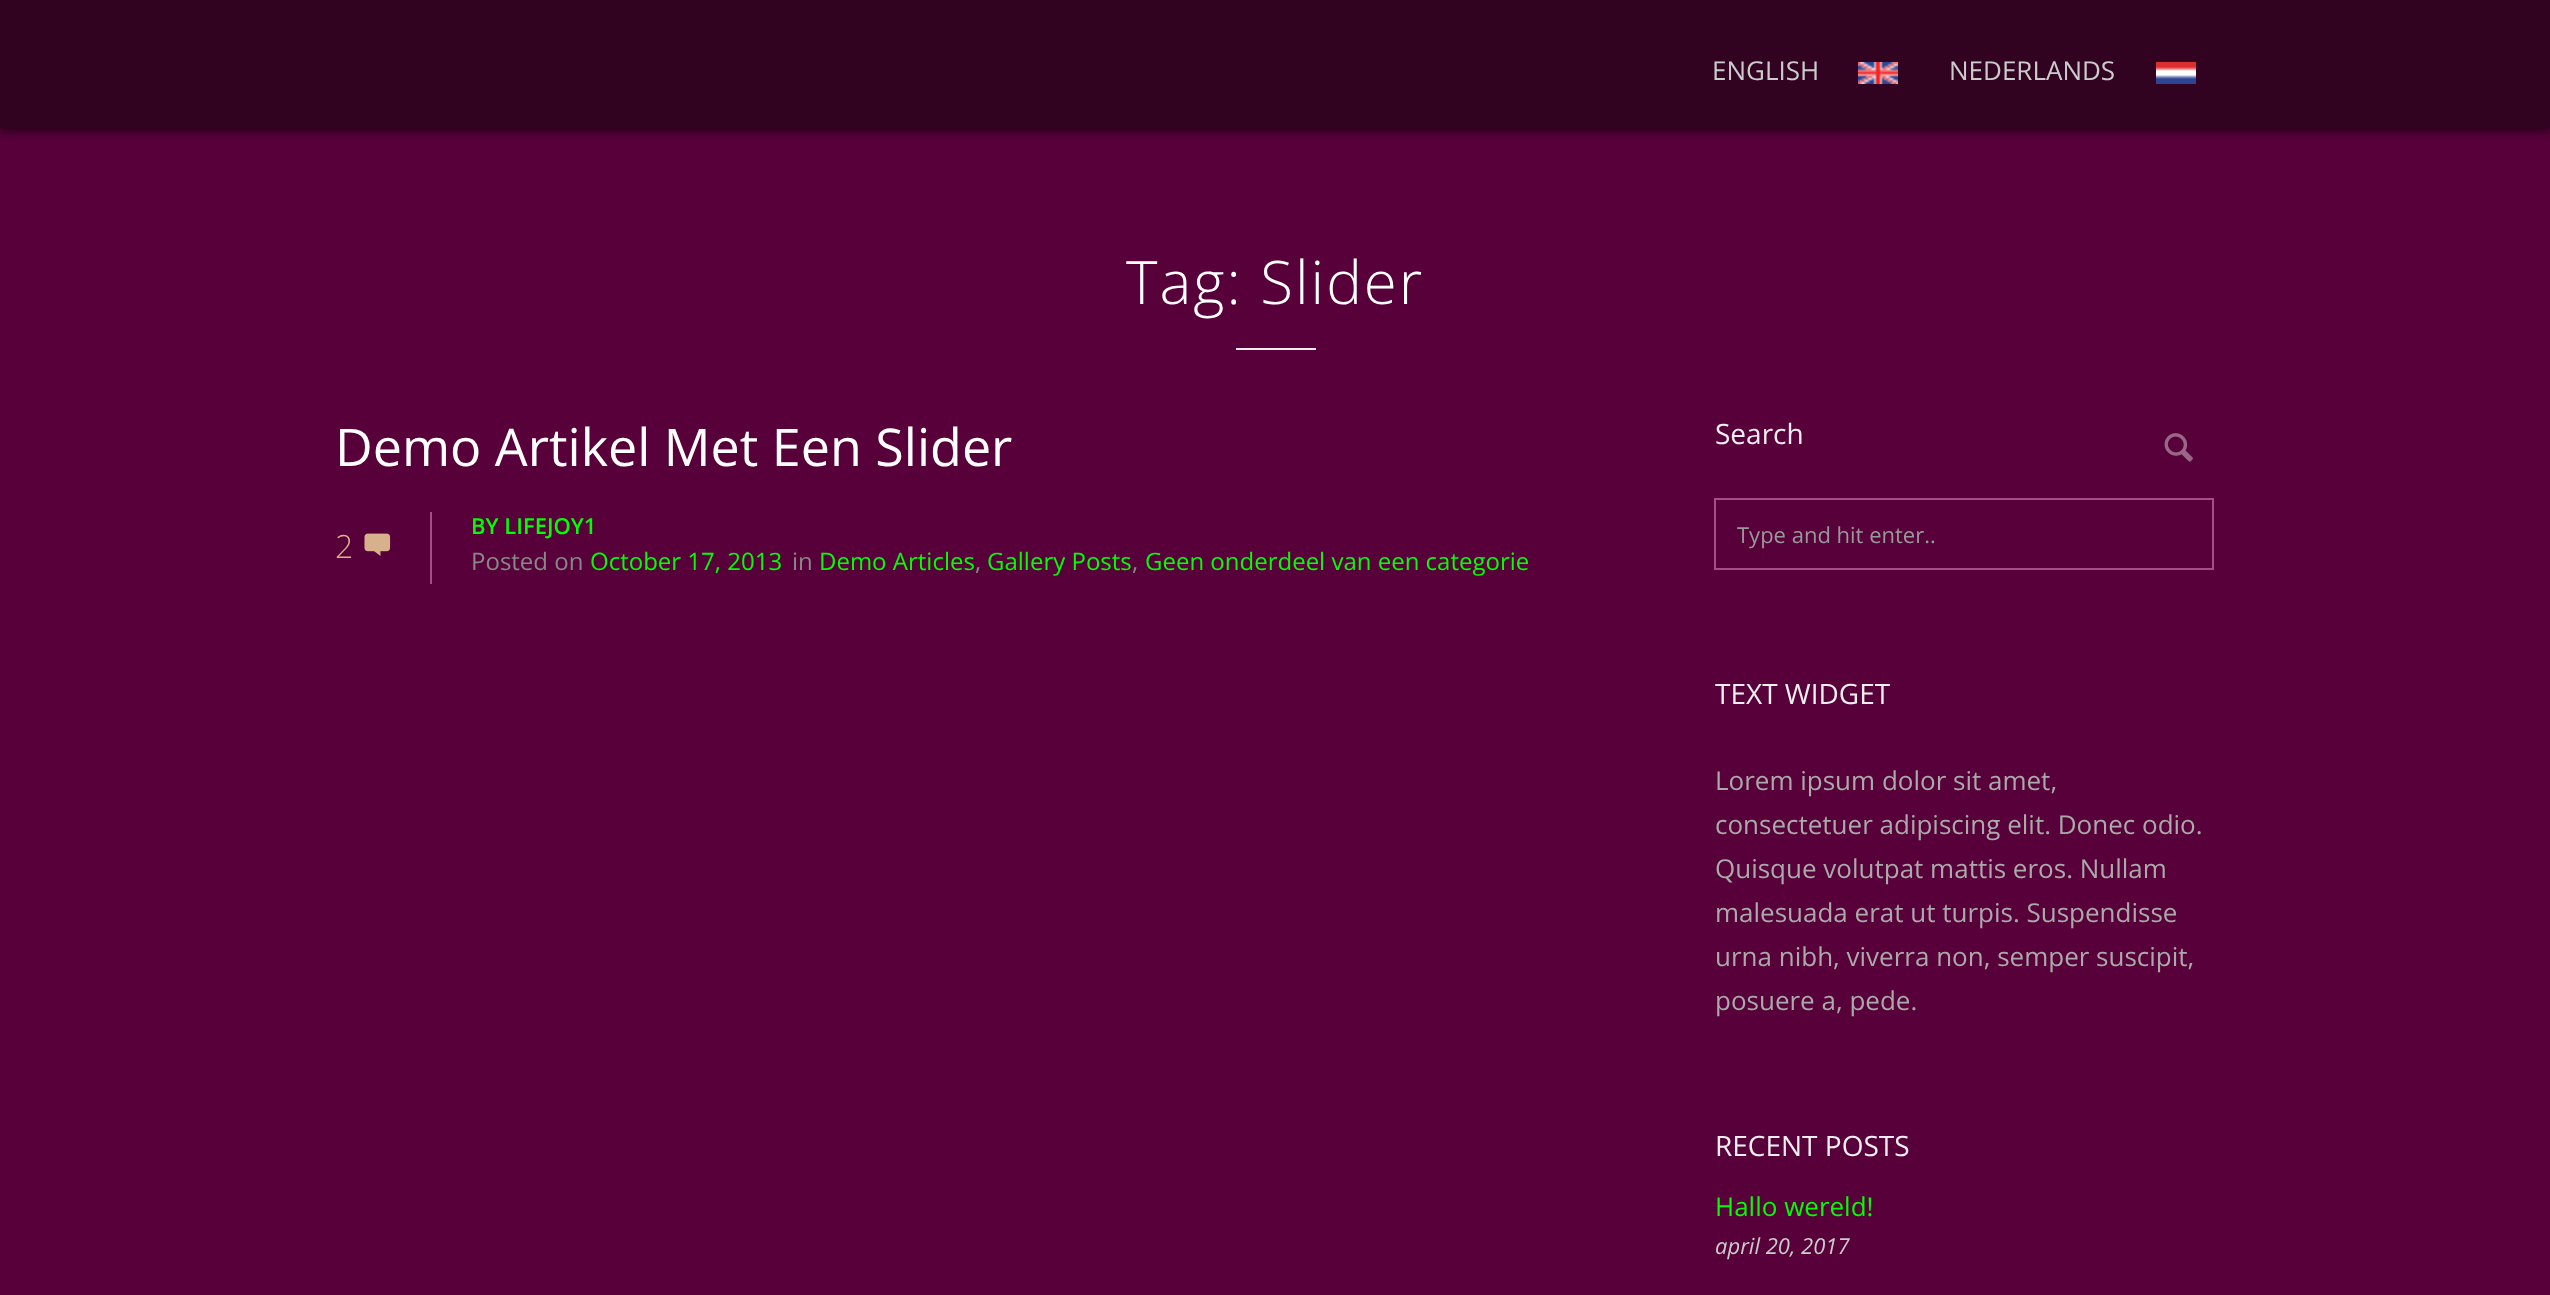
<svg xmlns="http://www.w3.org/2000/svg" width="2550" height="1295">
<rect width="100%" height="100%" fill="#570039"/>
<rect y="4" width="2550" height="128" fill="#00000080" filter="blur(4px)"/>
<rect width="2550" height="128" fill="#310321"/>
<text x="1712" y="80" style="font-family:Open Sans;font-size:26px;fill:#ccc">ENGLISH</text>
<image x="1858" y="62" width="40" height="22" href="media/1.png"/>
<text x="1949" y="80" style="font-family:Open Sans;font-size:26px;fill:#ccc">NEDERLANDS</text>
<image x="2156" y="62" width="40" height="22" href="media/2.png"/>
<text x="1126" y="304" style="font-family:Open Sans;font-size:60px;font-weight:300;letter-spacing:2px;fill:#fff">Tag: Slider</text>
<rect x="1236" y="348" width="80" height="2" fill="#eee"/>
<text x="335" y="466" style="font-family:Open Sans;font-size:52px;fill:#fff">Demo Artikel Met Een Slider</text>
<rect x="430" y="512" width="2" height="72" fill="#a94d89"/>
<text x="335" y="558" style="font-family:Open Sans;font-size:32px;font-weight:300;letter-spacing:-2px;fill:#d7b18b">2</text>
<image x="364" y="533" width="27" height="23" href="media/3.png"/>
<text x="471" y="534" style="font-family:Open Sans;font-size:22px;font-weight:600;fill:#0f0">BY LIFEJOY1</text>
<text x="471" y="570" style="font-family:Open Sans;font-size:24px;fill:#888">Posted on</text>
<text x="590" y="570" style="font-family:Open Sans;font-size:24px;fill:#0f0">October 17, 2013</text>
<text x="792" y="570" style="font-family:Open Sans;font-size:24px;fill:#888">in</text>
<text x="819" y="570" style="font-family:Open Sans;font-size:24px;fill:#0f0">Demo Articles</text>
<text x="975" y="570" style="font-family:Open Sans;font-size:24px;fill:#888">,</text>
<text x="987" y="570" style="font-family:Open Sans;font-size:24px;fill:#0f0">Gallery Posts</text>
<text x="1132" y="570" style="font-family:Open Sans;font-size:24px;fill:#888">,</text>
<text x="1145" y="570" style="font-family:Open Sans;font-size:24px;fill:#0f0">Geen onderdeel van een categorie</text>
<text x="1715" y="444" style="font-family:Open Sans;font-size:28px;fill:#eee">Search</text>
<image x="2164" y="433" width="29" height="29" href="media/4.png"/>
<rect x="1715" y="499" width="498" height="70" fill="none" stroke="#a94d89" stroke-width="2"/>
<text x="1737" y="543" style="font-family:Open Sans;font-size:22px;fill:#999">Type and hit enter..</text>
<text x="1715" y="704" style="font-family:Open Sans;font-size:28px;fill:#eee">TEXT WIDGET</text>
<text x="1715" y="790" style="font-family:Open Sans;font-size:26px;fill:#aaa">Lorem ipsum dolor sit amet,</text>
<text x="1715" y="834" style="font-family:Open Sans;font-size:26px;fill:#aaa">consectetuer adipiscing elit. Donec odio.</text>
<text x="1715" y="878" style="font-family:Open Sans;font-size:26px;fill:#aaa">Quisque volutpat mattis eros. Nullam</text>
<text x="1715" y="922" style="font-family:Open Sans;font-size:26px;fill:#aaa">malesuada erat ut turpis. Suspendisse</text>
<text x="1715" y="966" style="font-family:Open Sans;font-size:26px;fill:#aaa">urna nibh, viverra non, semper suscipit,</text>
<text x="1715" y="1010" style="font-family:Open Sans;font-size:26px;fill:#aaa">posuere a, pede.</text>
<text x="1715" y="1156" style="font-family:Open Sans;font-size:28px;fill:#eee">RECENT POSTS</text>
<text x="1715" y="1216" style="font-family:Open Sans;font-size:26px;fill:#0f0">Hallo wereld!</text>
<text x="1715" y="1254" style="font-family:Open Sans;font-size:22px;font-style:italic;fill:#ccc">april 20, 2017</text>
</svg>
